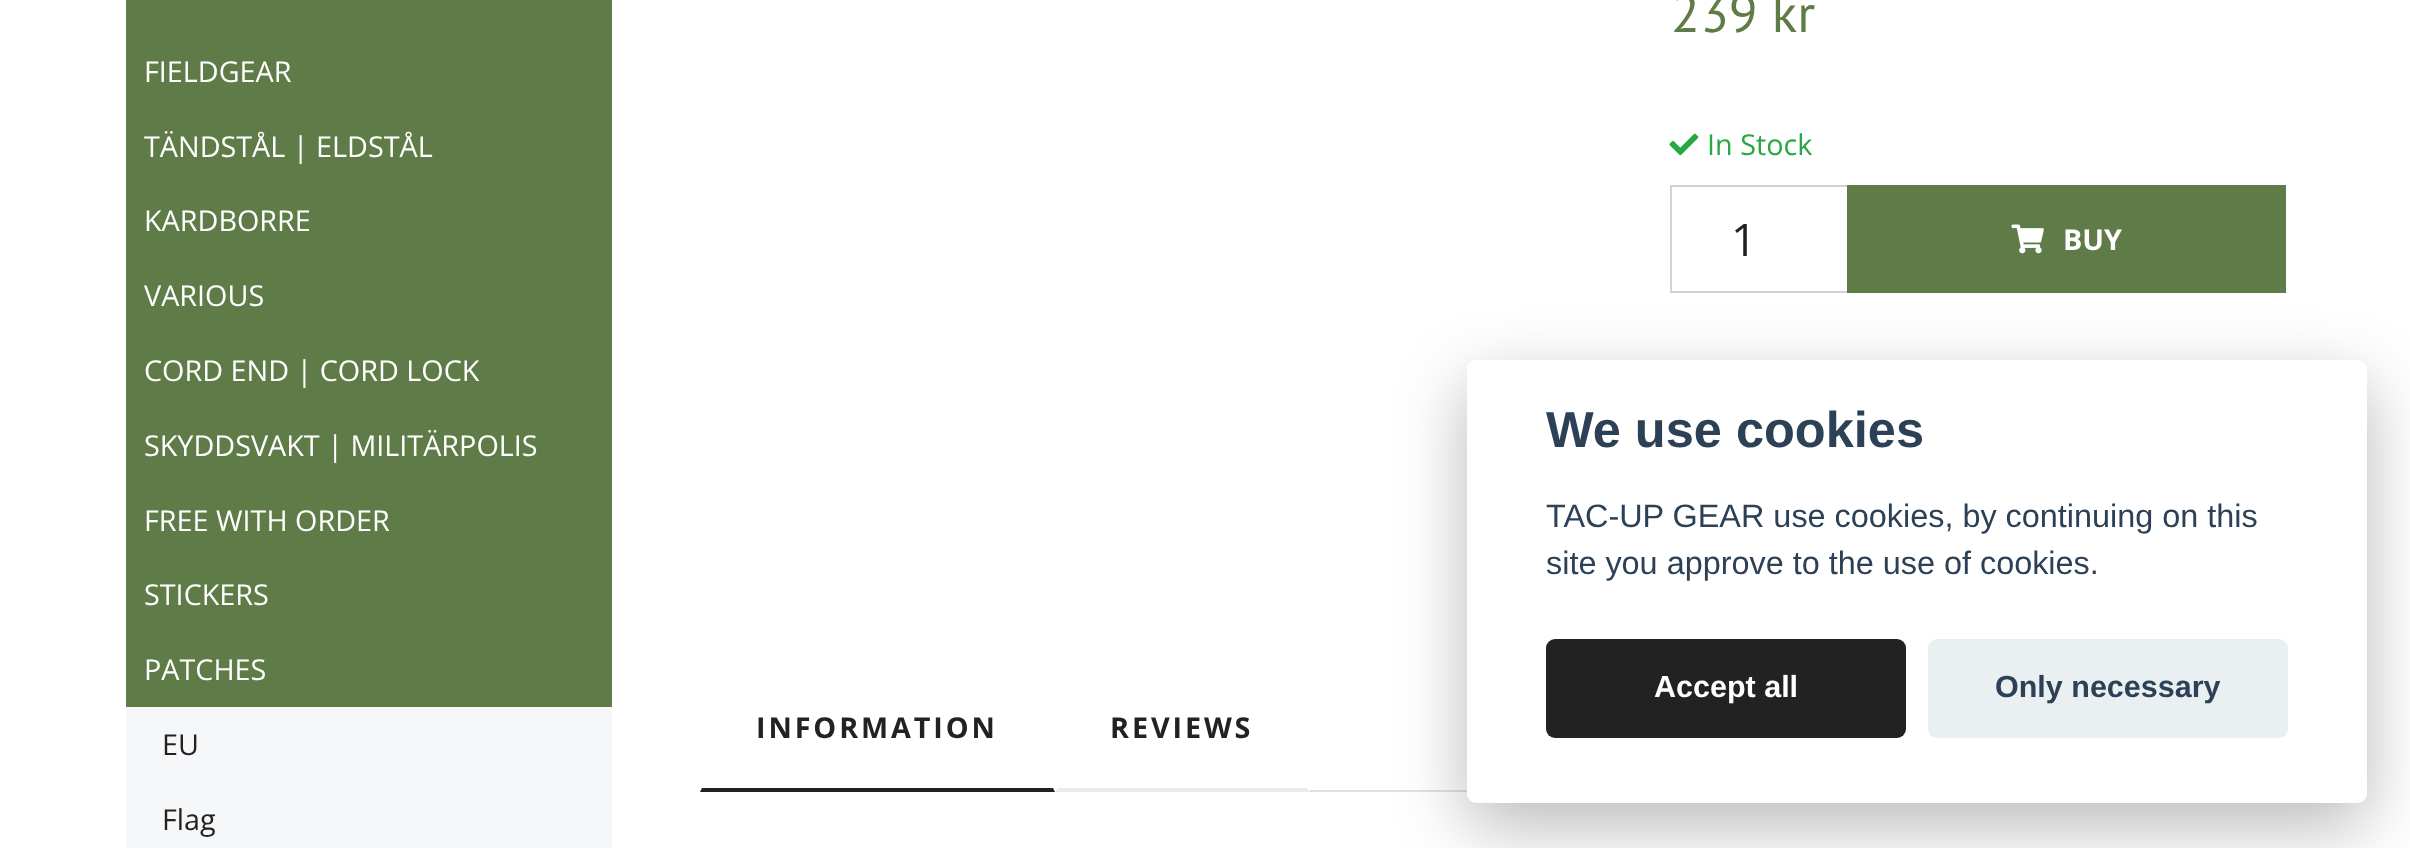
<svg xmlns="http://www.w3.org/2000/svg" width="2410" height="848">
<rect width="100%" height="100%" fill="#fff"/>
<rect x="126" width="486" height="707" fill="#5f7b48"/>
<text x="144" y="82" style="font-family:Open Sans;font-size:28.75px;fill:#fff">FIELDGEAR</text>
<text x="144" y="157" style="font-family:Open Sans;font-size:28.75px;fill:#fff">TÄNDSTÅL | ELDSTÅL</text>
<text x="144" y="231" style="font-family:Open Sans;font-size:28.75px;fill:#fff">KARDBORRE</text>
<text x="144" y="306" style="font-family:Open Sans;font-size:28.75px;fill:#fff">VARIOUS</text>
<text x="144" y="381" style="font-family:Open Sans;font-size:28.75px;fill:#fff">CORD END | CORD LOCK</text>
<text x="144" y="456" style="font-family:Open Sans;font-size:28.75px;fill:#fff">SKYDDSVAKT | MILITÄRPOLIS</text>
<text x="144" y="531" style="font-family:Open Sans;font-size:28.75px;fill:#fff">FREE WITH ORDER</text>
<text x="144" y="605" style="font-family:Open Sans;font-size:28.75px;fill:#fff">STICKERS</text>
<text x="144" y="680" style="font-family:Open Sans;font-size:28.75px;fill:#fff">PATCHES</text>
<rect x="126" y="707" width="486" height="141" fill="#f5f7f9"/>
<text x="162" y="755" style="font-family:Open Sans;font-size:28.75px;fill:#222">EU</text>
<text x="162" y="830" style="font-family:Open Sans;font-size:28.75px;fill:#222">Flag</text>
<text x="1671" y="32" style="font-family:PT Sans;font-size:53px;fill:#5f7b48">239 kr</text>
<image x="1669" y="133" width="30" height="23" href="media/1.png"/>
<text x="1707" y="155" style="font-family:Open Sans;font-size:28.75px;fill:#28a745">In Stock</text>
<rect x="1671" y="186" width="178" height="106" fill="none" stroke="#ced4da" stroke-width="2"/>
<text x="1731" y="256" style="font-family:Open Sans;font-size:45px;fill:#222">1</text>
<rect x="1847" y="185" width="439" height="108" fill="#5f7b48"/>
<image x="2011" y="224" width="33" height="30" href="media/2.png"/>
<text x="2063" y="250" style="font-family:Open Sans;font-size:28.75px;font-weight:bold;fill:#fff">BUY</text>
<rect x="1055" y="790" width="412" height="2" fill="#dee2e6"/>
<path d="M1055 792h-355l2-4h351z" fill="#222"/>
<text x="756" y="738" style="font-family:Open Sans;font-size:28.75px;font-weight:bold;letter-spacing:2.9px;fill:#222">INFORMATION</text>
<path d="M1310 666v126l-3-4v-120z" fill="#fff"/>
<path d="M1310 792h-255l3-4h249z" fill="#e9ecef"/>
<path d="M1055 792v-126l3 2v120z" fill="#fff"/>
<text x="1110" y="738" style="font-family:Open Sans;font-size:28.75px;font-weight:bold;letter-spacing:2.9px;fill:#222">REVIEWS</text>
<rect x="1467" y="383" width="900" height="443" rx="9" fill="#02020347" filter="blur(34px)"/>
<rect x="1467" y="360" width="900" height="443" rx="9" fill="#fff"/>
<text x="1546" y="447" style="font-family:Liberation Sans;font-size:50.5px;font-weight:bold;fill:#2d4156">We use cookies</text>
<text x="1546" y="527" style="font-family:Liberation Sans;font-size:32.4px;fill:#2d4156">TAC-UP GEAR use cookies, by continuing on this</text>
<text x="1546" y="574" style="font-family:Liberation Sans;font-size:32.4px;fill:#2d4156">site you approve to the use of cookies.</text>
<rect x="1546" y="639" width="360" height="99" rx="9" fill="#222"/>
<text x="1654" y="697" style="font-family:Liberation Sans;font-size:30.5px;font-weight:bold;fill:#fff">Accept all</text>
<rect x="1928" y="639" width="360" height="99" rx="9" fill="#eaeff2"/>
<text x="1995" y="697" style="font-family:Liberation Sans;font-size:30.5px;font-weight:bold;fill:#2d4156">Only necessary</text>
</svg>
